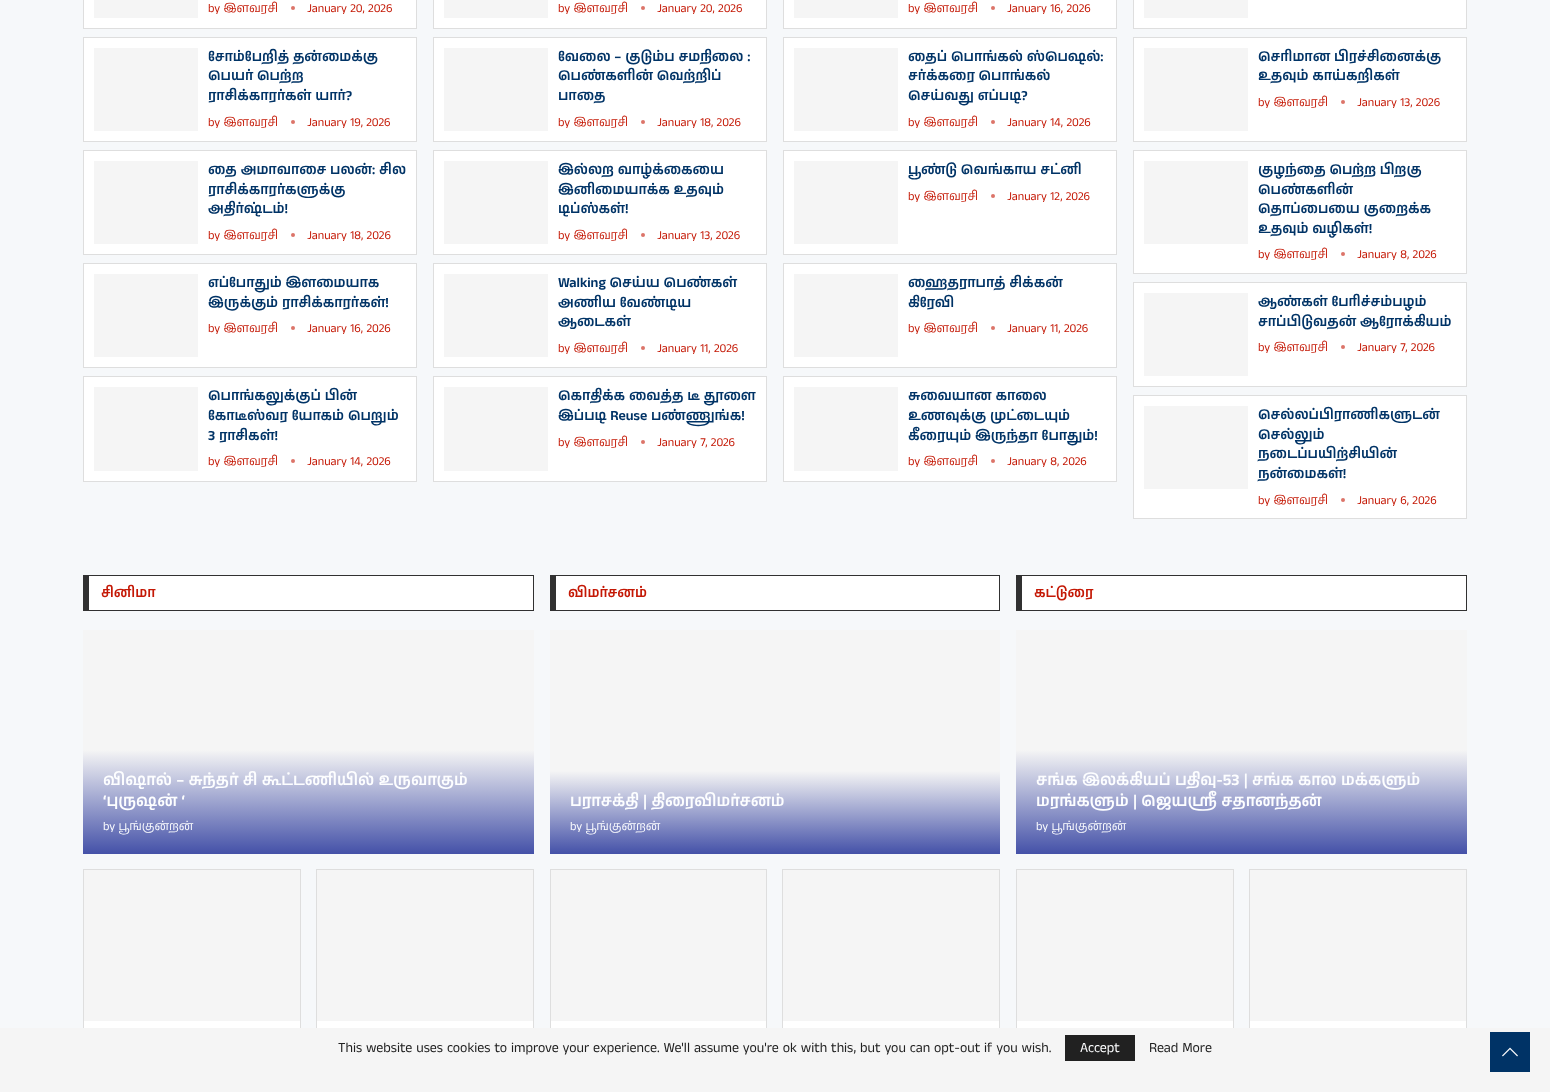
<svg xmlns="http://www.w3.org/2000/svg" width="1550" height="1092">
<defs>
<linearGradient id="g1" gradientUnits="userSpaceOnUse" x1="309" y1="750" x2="309" y2="854"><stop offset="0" stop-color="#f5f5f5"/><stop offset="1" stop-color="#4451a8"/></linearGradient>
<linearGradient id="g2" gradientUnits="userSpaceOnUse" x1="775" y1="771" x2="775" y2="854"><stop offset="0" stop-color="#f5f5f5"/><stop offset="1" stop-color="#4451a8"/></linearGradient>
<linearGradient id="g3" gradientUnits="userSpaceOnUse" x1="1242" y1="750" x2="1242" y2="854"><stop offset="0" stop-color="#f5f5f5"/><stop offset="1" stop-color="#4451a8"/></linearGradient>
</defs>
<rect width="100%" height="100%" fill="#f6f8fa"/>
<rect x="83.5" y="-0.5" width="333" height="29" fill="#fff" stroke="#dedede"/>
<rect x="94" width="104" height="18" fill="#f5f5f5"/>
<text x="208" y="12" style="font-family:Anek Tamil;font-size:12px;fill:#c41805">by இளவரசி</text>
<circle cx="293" cy="8" r="2" fill="#dc7469"/>
<text x="307" y="12" style="font-family:Anek Tamil;font-size:12px;fill:#c41805">January 20, 2026</text>
<rect x="83.5" y="37.5" width="333" height="104" fill="#fff" stroke="#dedede"/>
<rect x="94" y="48" width="104" height="83" fill="#f5f5f5"/>
<text x="208" y="61" style="font-family:Anek Tamil;font-size:14px;font-weight:600;fill:#036">சோம்பேறித் தன்மைக்கு</text>
<text x="208" y="80" style="font-family:Anek Tamil;font-size:14px;font-weight:600;fill:#036">பெயர் பெற்ற</text>
<text x="208" y="100" style="font-family:Anek Tamil;font-size:14px;font-weight:600;fill:#036">ராசிக்காரர்கள் யார்?</text>
<text x="208" y="126" style="font-family:Anek Tamil;font-size:12px;fill:#c41805">by இளவரசி</text>
<circle cx="293" cy="122" r="2" fill="#dc7469"/>
<text x="307" y="126" style="font-family:Anek Tamil;font-size:12px;fill:#c41805">January 19, 2026</text>
<rect x="83.5" y="150.5" width="333" height="104" fill="#fff" stroke="#dedede"/>
<rect x="94" y="161" width="104" height="83" fill="#f5f5f5"/>
<text x="208" y="174" style="font-family:Anek Tamil;font-size:14px;font-weight:600;fill:#036">தை அமாவாசை பலன்: சில</text>
<text x="208" y="194" style="font-family:Anek Tamil;font-size:14px;font-weight:600;fill:#036">ராசிக்காரர்களுக்கு</text>
<text x="208" y="213" style="font-family:Anek Tamil;font-size:14px;font-weight:600;fill:#036">அதிர்ஷ்டம்!</text>
<text x="208" y="239" style="font-family:Anek Tamil;font-size:12px;fill:#c41805">by இளவரசி</text>
<circle cx="293" cy="235" r="2" fill="#dc7469"/>
<text x="307" y="239" style="font-family:Anek Tamil;font-size:12px;fill:#c41805">January 18, 2026</text>
<rect x="83.5" y="263.5" width="333" height="104" fill="#fff" stroke="#dedede"/>
<rect x="94" y="274" width="104" height="83" fill="#f5f5f5"/>
<text x="208" y="287" style="font-family:Anek Tamil;font-size:14px;font-weight:600;fill:#036">எப்போதும் இளமையாக</text>
<text x="208" y="307" style="font-family:Anek Tamil;font-size:14px;font-weight:600;fill:#036">இருக்கும் ராசிக்காரர்கள்!</text>
<text x="208" y="332" style="font-family:Anek Tamil;font-size:12px;fill:#c41805">by இளவரசி</text>
<circle cx="293" cy="328" r="2" fill="#dc7469"/>
<text x="307" y="332" style="font-family:Anek Tamil;font-size:12px;fill:#c41805">January 16, 2026</text>
<rect x="83.5" y="376.5" width="333" height="105" fill="#fff" stroke="#dedede"/>
<rect x="94" y="387" width="104" height="84" fill="#f5f5f5"/>
<text x="208" y="400" style="font-family:Anek Tamil;font-size:14px;font-weight:600;fill:#036">பொங்கலுக்குப் பின்</text>
<text x="208" y="420" style="font-family:Anek Tamil;font-size:14px;font-weight:600;fill:#036">கோடீஸ்வர யோகம் பெறும்</text>
<text x="208" y="440" style="font-family:Anek Tamil;font-size:14px;font-weight:600;fill:#036">3 ராசிகள்!</text>
<text x="208" y="465" style="font-family:Anek Tamil;font-size:12px;fill:#c41805">by இளவரசி</text>
<circle cx="293" cy="461" r="2" fill="#dc7469"/>
<text x="307" y="465" style="font-family:Anek Tamil;font-size:12px;fill:#c41805">January 14, 2026</text>
<rect x="433.5" y="-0.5" width="333" height="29" fill="#fff" stroke="#dedede"/>
<rect x="444" width="104" height="18" fill="#f5f5f5"/>
<text x="558" y="12" style="font-family:Anek Tamil;font-size:12px;fill:#c41805">by இளவரசி</text>
<circle cx="643" cy="8" r="2" fill="#dc7469"/>
<text x="657" y="12" style="font-family:Anek Tamil;font-size:12px;fill:#c41805">January 20, 2026</text>
<rect x="433.5" y="37.5" width="333" height="104" fill="#fff" stroke="#dedede"/>
<rect x="444" y="48" width="104" height="83" fill="#f5f5f5"/>
<text x="558" y="61" style="font-family:Anek Tamil;font-size:14px;font-weight:600;fill:#036">வேலை – குடும்ப சமநிலை :</text>
<text x="558" y="80" style="font-family:Anek Tamil;font-size:14px;font-weight:600;fill:#036">பெண்களின் வெற்றிப்</text>
<text x="558" y="100" style="font-family:Anek Tamil;font-size:14px;font-weight:600;fill:#036">பாதை</text>
<text x="558" y="126" style="font-family:Anek Tamil;font-size:12px;fill:#c41805">by இளவரசி</text>
<circle cx="643" cy="122" r="2" fill="#dc7469"/>
<text x="657" y="126" style="font-family:Anek Tamil;font-size:12px;fill:#c41805">January 18, 2026</text>
<rect x="433.5" y="150.5" width="333" height="104" fill="#fff" stroke="#dedede"/>
<rect x="444" y="161" width="104" height="83" fill="#f5f5f5"/>
<text x="558" y="174" style="font-family:Anek Tamil;font-size:14px;font-weight:600;fill:#036">இல்லற வாழ்க்கையை</text>
<text x="558" y="194" style="font-family:Anek Tamil;font-size:14px;font-weight:600;fill:#036">இனிமையாக்க உதவும்</text>
<text x="558" y="213" style="font-family:Anek Tamil;font-size:14px;font-weight:600;fill:#036">டிப்ஸ்கள்!</text>
<text x="558" y="239" style="font-family:Anek Tamil;font-size:12px;fill:#c41805">by இளவரசி</text>
<circle cx="643" cy="235" r="2" fill="#dc7469"/>
<text x="657" y="239" style="font-family:Anek Tamil;font-size:12px;fill:#c41805">January 13, 2026</text>
<rect x="433.5" y="263.5" width="333" height="104" fill="#fff" stroke="#dedede"/>
<rect x="444" y="274" width="104" height="83" fill="#f5f5f5"/>
<text x="558" y="287" style="font-family:Anek Tamil;font-size:14px;font-weight:600;fill:#036">Walking செய்ய பெண்கள்</text>
<text x="558" y="307" style="font-family:Anek Tamil;font-size:14px;font-weight:600;fill:#036">அணிய வேண்டிய</text>
<text x="558" y="326" style="font-family:Anek Tamil;font-size:14px;font-weight:600;fill:#036">ஆடைகள்</text>
<text x="558" y="352" style="font-family:Anek Tamil;font-size:12px;fill:#c41805">by இளவரசி</text>
<circle cx="643" cy="348" r="2" fill="#dc7469"/>
<text x="657" y="352" style="font-family:Anek Tamil;font-size:12px;fill:#c41805">January 11, 2026</text>
<rect x="433.5" y="376.5" width="333" height="105" fill="#fff" stroke="#dedede"/>
<rect x="444" y="387" width="104" height="84" fill="#f5f5f5"/>
<text x="558" y="400" style="font-family:Anek Tamil;font-size:14px;font-weight:600;fill:#036">கொதிக்க வைத்த டீ தூளை</text>
<text x="558" y="420" style="font-family:Anek Tamil;font-size:14px;font-weight:600;fill:#036">இப்படி Reuse பண்ணுங்க!</text>
<text x="558" y="446" style="font-family:Anek Tamil;font-size:12px;fill:#c41805">by இளவரசி</text>
<circle cx="643" cy="442" r="2" fill="#dc7469"/>
<text x="657" y="446" style="font-family:Anek Tamil;font-size:12px;fill:#c41805">January 7, 2026</text>
<rect x="783.5" y="-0.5" width="333" height="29" fill="#fff" stroke="#dedede"/>
<rect x="794" width="104" height="18" fill="#f5f5f5"/>
<text x="908" y="12" style="font-family:Anek Tamil;font-size:12px;fill:#c41805">by இளவரசி</text>
<circle cx="993" cy="8" r="2" fill="#dc7469"/>
<text x="1007" y="12" style="font-family:Anek Tamil;font-size:12px;fill:#c41805">January 16, 2026</text>
<rect x="783.5" y="37.5" width="333" height="104" fill="#fff" stroke="#dedede"/>
<rect x="794" y="48" width="104" height="83" fill="#f5f5f5"/>
<text x="908" y="61" style="font-family:Anek Tamil;font-size:14px;font-weight:600;fill:#036">தைப் பொங்கல் ஸ்பெஷல்:</text>
<text x="908" y="80" style="font-family:Anek Tamil;font-size:14px;font-weight:600;fill:#036">சர்க்கரை பொங்கல்</text>
<text x="908" y="100" style="font-family:Anek Tamil;font-size:14px;font-weight:600;fill:#036">செய்வது எப்படி?</text>
<text x="908" y="126" style="font-family:Anek Tamil;font-size:12px;fill:#c41805">by இளவரசி</text>
<circle cx="993" cy="122" r="2" fill="#dc7469"/>
<text x="1007" y="126" style="font-family:Anek Tamil;font-size:12px;fill:#c41805">January 14, 2026</text>
<rect x="783.5" y="150.5" width="333" height="104" fill="#fff" stroke="#dedede"/>
<rect x="794" y="161" width="104" height="83" fill="#f5f5f5"/>
<text x="908" y="174" style="font-family:Anek Tamil;font-size:14px;font-weight:600;fill:#036">பூண்டு வெங்காய சட்னி</text>
<text x="908" y="200" style="font-family:Anek Tamil;font-size:12px;fill:#c41805">by இளவரசி</text>
<circle cx="993" cy="196" r="2" fill="#dc7469"/>
<text x="1007" y="200" style="font-family:Anek Tamil;font-size:12px;fill:#c41805">January 12, 2026</text>
<rect x="783.5" y="263.5" width="333" height="104" fill="#fff" stroke="#dedede"/>
<rect x="794" y="274" width="104" height="83" fill="#f5f5f5"/>
<text x="908" y="287" style="font-family:Anek Tamil;font-size:14px;font-weight:600;fill:#036">ஹைதராபாத் சிக்கன்</text>
<text x="908" y="307" style="font-family:Anek Tamil;font-size:14px;font-weight:600;fill:#036">கிரேவி</text>
<text x="908" y="332" style="font-family:Anek Tamil;font-size:12px;fill:#c41805">by இளவரசி</text>
<circle cx="993" cy="328" r="2" fill="#dc7469"/>
<text x="1007" y="332" style="font-family:Anek Tamil;font-size:12px;fill:#c41805">January 11, 2026</text>
<rect x="783.5" y="376.5" width="333" height="105" fill="#fff" stroke="#dedede"/>
<rect x="794" y="387" width="104" height="84" fill="#f5f5f5"/>
<text x="908" y="400" style="font-family:Anek Tamil;font-size:14px;font-weight:600;fill:#036">சுவையான காலை</text>
<text x="908" y="420" style="font-family:Anek Tamil;font-size:14px;font-weight:600;fill:#036">உணவுக்கு முட்டையும்</text>
<text x="908" y="440" style="font-family:Anek Tamil;font-size:14px;font-weight:600;fill:#036">கீரையும் இருந்தா போதும்!</text>
<text x="908" y="465" style="font-family:Anek Tamil;font-size:12px;fill:#c41805">by இளவரசி</text>
<circle cx="993" cy="461" r="2" fill="#dc7469"/>
<text x="1007" y="465" style="font-family:Anek Tamil;font-size:12px;fill:#c41805">January 8, 2026</text>
<rect x="1133.5" y="-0.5" width="333" height="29" fill="#fff" stroke="#dedede"/>
<rect x="1144" width="104" height="18" fill="#f5f5f5"/>
<rect x="1133.5" y="37.5" width="333" height="104" fill="#fff" stroke="#dedede"/>
<rect x="1144" y="48" width="104" height="83" fill="#f5f5f5"/>
<text x="1258" y="61" style="font-family:Anek Tamil;font-size:14px;font-weight:600;fill:#036">செரிமான பிரச்சினைக்கு</text>
<text x="1258" y="80" style="font-family:Anek Tamil;font-size:14px;font-weight:600;fill:#036">உதவும் காய்கறிகள்</text>
<text x="1258" y="106" style="font-family:Anek Tamil;font-size:12px;fill:#c41805">by இளவரசி</text>
<circle cx="1343" cy="102" r="2" fill="#dc7469"/>
<text x="1357" y="106" style="font-family:Anek Tamil;font-size:12px;fill:#c41805">January 13, 2026</text>
<rect x="1133.5" y="150.5" width="333" height="123" fill="#fff" stroke="#dedede"/>
<rect x="1144" y="161" width="104" height="83" fill="#f5f5f5"/>
<text x="1258" y="174" style="font-family:Anek Tamil;font-size:14px;font-weight:600;fill:#036">குழந்தை பெற்ற பிறகு</text>
<text x="1258" y="194" style="font-family:Anek Tamil;font-size:14px;font-weight:600;fill:#036">பெண்களின்</text>
<text x="1258" y="213" style="font-family:Anek Tamil;font-size:14px;font-weight:600;fill:#036">தொப்பையை குறைக்க</text>
<text x="1258" y="233" style="font-family:Anek Tamil;font-size:14px;font-weight:600;fill:#036">உதவும் வழிகள்!</text>
<text x="1258" y="258" style="font-family:Anek Tamil;font-size:12px;fill:#c41805">by இளவரசி</text>
<circle cx="1343" cy="254" r="2" fill="#dc7469"/>
<text x="1357" y="258" style="font-family:Anek Tamil;font-size:12px;fill:#c41805">January 8, 2026</text>
<rect x="1133.5" y="282.5" width="333" height="104" fill="#fff" stroke="#dedede"/>
<rect x="1144" y="293" width="104" height="83" fill="#f5f5f5"/>
<text x="1258" y="306" style="font-family:Anek Tamil;font-size:14px;font-weight:600;fill:#036">ஆண்கள் பேரிச்சம்பழம்</text>
<text x="1258" y="326" style="font-family:Anek Tamil;font-size:14px;font-weight:600;fill:#036">சாப்பிடுவதன் ஆரோக்கியம்</text>
<text x="1258" y="351" style="font-family:Anek Tamil;font-size:12px;fill:#c41805">by இளவரசி</text>
<circle cx="1343" cy="347" r="2" fill="#dc7469"/>
<text x="1357" y="351" style="font-family:Anek Tamil;font-size:12px;fill:#c41805">January 7, 2026</text>
<rect x="1133.5" y="395.5" width="333" height="123" fill="#fff" stroke="#dedede"/>
<rect x="1144" y="406" width="104" height="83" fill="#f5f5f5"/>
<text x="1258" y="419" style="font-family:Anek Tamil;font-size:14px;font-weight:600;fill:#036">செல்லப்பிராணிகளுடன்</text>
<text x="1258" y="439" style="font-family:Anek Tamil;font-size:14px;font-weight:600;fill:#036">செல்லும்</text>
<text x="1258" y="458" style="font-family:Anek Tamil;font-size:14px;font-weight:600;fill:#036">நடைப்பயிற்சியின்</text>
<text x="1258" y="478" style="font-family:Anek Tamil;font-size:14px;font-weight:600;fill:#036">நன்மைகள்!</text>
<text x="1258" y="504" style="font-family:Anek Tamil;font-size:12px;fill:#c41805">by இளவரசி</text>
<circle cx="1343" cy="500" r="2" fill="#dc7469"/>
<text x="1357" y="504" style="font-family:Anek Tamil;font-size:12px;fill:#c41805">January 6, 2026</text>
<rect x="89" y="576" width="444" height="34" fill="#fff"/>
<rect x="83" y="575" width="451" height="1" fill="#313131"/>
<rect x="533" y="575" width="1" height="36" fill="#313131"/>
<rect x="83" y="610" width="451" height="1" fill="#313131"/>
<rect x="83" y="575" width="6" height="36" fill="#313131"/>
<text x="101" y="597" style="font-family:Anek Tamil;font-size:14px;font-weight:600;fill:#c41805">சினிமா</text>
<rect x="83" y="630" width="451" height="120" fill="#f5f5f5"/>
<rect x="83" y="750" width="451" height="104" fill="url(#g1)"/>
<text x="103" y="785" style="font-family:Anek Tamil;font-size:16px;font-weight:600;fill:#fdfeff">விஷால் – சுந்தர் சி கூட்டணியில் உருவாகும்</text>
<text x="103" y="806" style="font-family:Anek Tamil;font-size:16px;font-weight:600;fill:#fdfeff">‘புருஷன் ‘</text>
<text x="103" y="830" style="font-family:Anek Tamil;font-size:12px;fill:#fdfeff">by பூங்குன்றன்</text>
<rect x="84" y="1021" width="216" height="7" fill="#fff"/>
<rect x="83.5" y="869.5" width="217" height="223" fill="none" stroke="#dedede"/>
<rect x="84" y="870" width="216" height="151" fill="#f5f5f5"/>
<rect x="317" y="1021" width="216" height="7" fill="#fff"/>
<rect x="316.5" y="869.5" width="217" height="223" fill="none" stroke="#dedede"/>
<rect x="317" y="870" width="216" height="151" fill="#f5f5f5"/>
<rect x="556" y="576" width="443" height="34" fill="#fff"/>
<rect x="550" y="575" width="450" height="1" fill="#313131"/>
<rect x="999" y="575" width="1" height="36" fill="#313131"/>
<rect x="550" y="610" width="450" height="1" fill="#313131"/>
<rect x="550" y="575" width="6" height="36" fill="#313131"/>
<text x="568" y="597" style="font-family:Anek Tamil;font-size:14px;font-weight:600;fill:#c41805">விமர்சனம்</text>
<rect x="550" y="630" width="450" height="141" fill="#f5f5f5"/>
<rect x="550" y="771" width="450" height="83" fill="url(#g2)"/>
<text x="570" y="806" style="font-family:Anek Tamil;font-size:16px;font-weight:600;fill:#fdfeff">பராசக்தி | திரைவிமர்சனம்</text>
<text x="570" y="830" style="font-family:Anek Tamil;font-size:12px;fill:#fdfeff">by பூங்குன்றன்</text>
<rect x="551" y="1021" width="215" height="7" fill="#fff"/>
<rect x="550.5" y="869.5" width="216" height="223" fill="none" stroke="#dedede"/>
<rect x="551" y="870" width="215" height="151" fill="#f5f5f5"/>
<rect x="783" y="1021" width="216" height="7" fill="#fff"/>
<rect x="782.5" y="869.5" width="217" height="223" fill="none" stroke="#dedede"/>
<rect x="783" y="870" width="216" height="151" fill="#f5f5f5"/>
<rect x="1022" y="576" width="444" height="34" fill="#fff"/>
<rect x="1016" y="575" width="451" height="1" fill="#313131"/>
<rect x="1466" y="575" width="1" height="36" fill="#313131"/>
<rect x="1016" y="610" width="451" height="1" fill="#313131"/>
<rect x="1016" y="575" width="6" height="36" fill="#313131"/>
<text x="1034" y="597" style="font-family:Anek Tamil;font-size:14px;font-weight:600;fill:#c41805">கட்டுரை</text>
<rect x="1016" y="630" width="451" height="120" fill="#f5f5f5"/>
<rect x="1016" y="750" width="451" height="104" fill="url(#g3)"/>
<text x="1036" y="785" style="font-family:Anek Tamil;font-size:16px;font-weight:600;fill:#fdfeff">சங்க இலக்கியப் பதிவு-53 | சங்க கால மக்களும்</text>
<text x="1036" y="806" style="font-family:Anek Tamil;font-size:16px;font-weight:600;fill:#fdfeff">மரங்களும் | ஜெயஸ்ரீ சதானந்தன்</text>
<text x="1036" y="830" style="font-family:Anek Tamil;font-size:12px;fill:#fdfeff">by பூங்குன்றன்</text>
<rect x="1017" y="1021" width="216" height="7" fill="#fff"/>
<rect x="1016.5" y="869.5" width="217" height="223" fill="none" stroke="#dedede"/>
<rect x="1017" y="870" width="216" height="151" fill="#f5f5f5"/>
<rect x="1250" y="1021" width="216" height="7" fill="#fff"/>
<rect x="1249.5" y="869.5" width="217" height="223" fill="none" stroke="#dedede"/>
<rect x="1250" y="870" width="216" height="151" fill="#f5f5f5"/>
<rect y="1028" width="1550" height="64" fill="#f5f5f5"/>
<text x="338" y="1052" style="font-family:Anek Tamil;font-size:14px;fill:#212121">This website uses cookies to improve your experience. We'll assume you're ok with this, but you can opt-out if you wish.</text>
<rect x="1065" y="1035" width="70" height="26" fill="#212121"/>
<text x="1080" y="1052" style="font-family:Anek Tamil;font-size:14px;fill:#fdfeff">Accept</text>
<text x="1149" y="1052" style="font-family:Anek Tamil;font-size:14px;fill:#212121">Read More</text>
<rect x="1490" y="1032" width="40" height="40" fill="#036"/>
<image x="1502" y="1047" width="16" height="10" href="media/1.png"/>
</svg>
